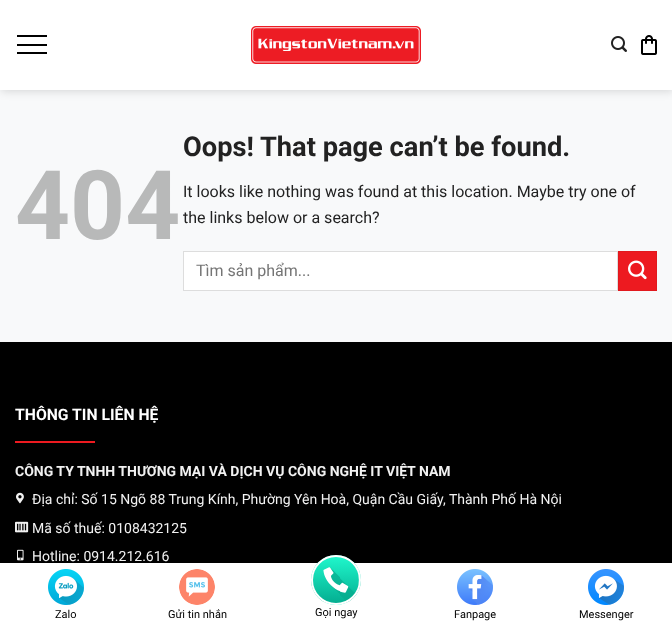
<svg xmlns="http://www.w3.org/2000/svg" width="672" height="637">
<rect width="100%" height="100%" fill="#f8f9fa"/>
<rect x="1" y="1" width="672" height="90" fill="#00000026" filter="blur(5px)"/>
<rect width="672" height="90" fill="#fff"/>
<rect x="17" y="35" width="30" height="2" fill="#000"/>
<rect x="17" y="44" width="30" height="2" fill="#000"/>
<rect x="17" y="52" width="30" height="2" fill="#000"/>
<image x="251" y="26" width="170" height="38" href="media/1.png"/>
<image x="611" y="36" width="16" height="16" href="media/2.png"/>
<image x="641" y="35" width="16" height="20" href="media/3.png"/>
<text x="15" y="239" style="font-family:Roboto;font-size:96px;font-weight:bold;fill:#b8b9b9">404</text>
<text x="183" y="156" style="font-family:Roboto;font-size:27.25px;font-weight:bold;fill:#222">Oops! That page can’t be found.</text>
<text x="183" y="197" style="font-family:Roboto;font-size:16px;fill:#222">It looks like nothing was found at this location. Maybe try one of</text>
<text x="183" y="223" style="font-family:Roboto;font-size:16px;fill:#222">the links below or a search?</text>
<rect x="183.5" y="251.5" width="434" height="39" fill="#fff" stroke="#ddd"/>
<text x="196" y="276" style="font-family:Roboto;font-size:16px;fill:#757575">Tìm sản phẩm...</text>
<rect x="618.5" y="251.5" width="38" height="39" fill="#ed1a20" stroke="#e1191e"/>
<image x="628" y="260" width="19" height="20" href="media/4.png"/>
<rect y="342" width="672" height="221" fill="#000"/>
<text x="15" y="420" style="font-family:Roboto;font-size:15.75px;font-weight:bold;fill:#fff">THÔNG TIN LIÊN HỆ</text>
<rect x="15" y="441" width="80" height="2" fill="#ed1a20"/>
<text x="15" y="476" style="font-family:Roboto;font-size:14px;font-weight:bold;fill:#f1f1f1">CÔNG TY TNHH THƯƠNG MẠI VÀ DỊCH VỤ CÔNG NGHỆ IT VIỆT NAM</text>
<image x="16" y="492" width="8" height="12" href="media/5.png"/>
<text x="32" y="504" style="font-family:Roboto;font-size:14px;fill:#f1f1f1">Địa chỉ: Số 15 Ngõ 88 Trung Kính, Phường Yên Hoà, Quận Cầu Giấy, Thành Phố Hà Nội</text>
<image x="15" y="521" width="14" height="12" href="media/6.png"/>
<text x="32" y="533" style="font-family:Roboto;font-size:14px;fill:#f1f1f1">Mã số thuế: 0108432125</text>
<image x="17" y="549" width="7" height="12" href="media/7.png"/>
<text x="32" y="561" style="font-family:Roboto;font-size:14px;fill:#f1f1f1">Hotline: 0914.212.616</text>
<rect y="563" width="672" height="74" fill="#fff"/>
<image x="48" y="569" width="36" height="36" href="media/8.png"/>
<text x="55" y="618" style="font-family:Roboto;font-size:11px;fill:#000">Zalo</text>
<image x="179" y="569" width="36" height="36" href="media/9.png"/>
<text x="168" y="618" style="font-family:Roboto;font-size:11px;fill:#000">Gửi tin nhắn</text>
<image x="311" y="555" width="50" height="50" href="media/10.png"/>
<circle cx="336" cy="580" r="24" fill="none" stroke="#fff" stroke-width="2"/>
<text x="315" y="616" style="font-family:Roboto;font-size:11px;fill:#000">Gọi ngay</text>
<image x="457" y="569" width="36" height="36" href="media/11.png"/>
<text x="454" y="618" style="font-family:Roboto;font-size:11px;fill:#000">Fanpage</text>
<image x="588" y="569" width="36" height="36" href="media/12.png"/>
<text x="579" y="618" style="font-family:Roboto;font-size:11px;fill:#000">Messenger</text>
</svg>
